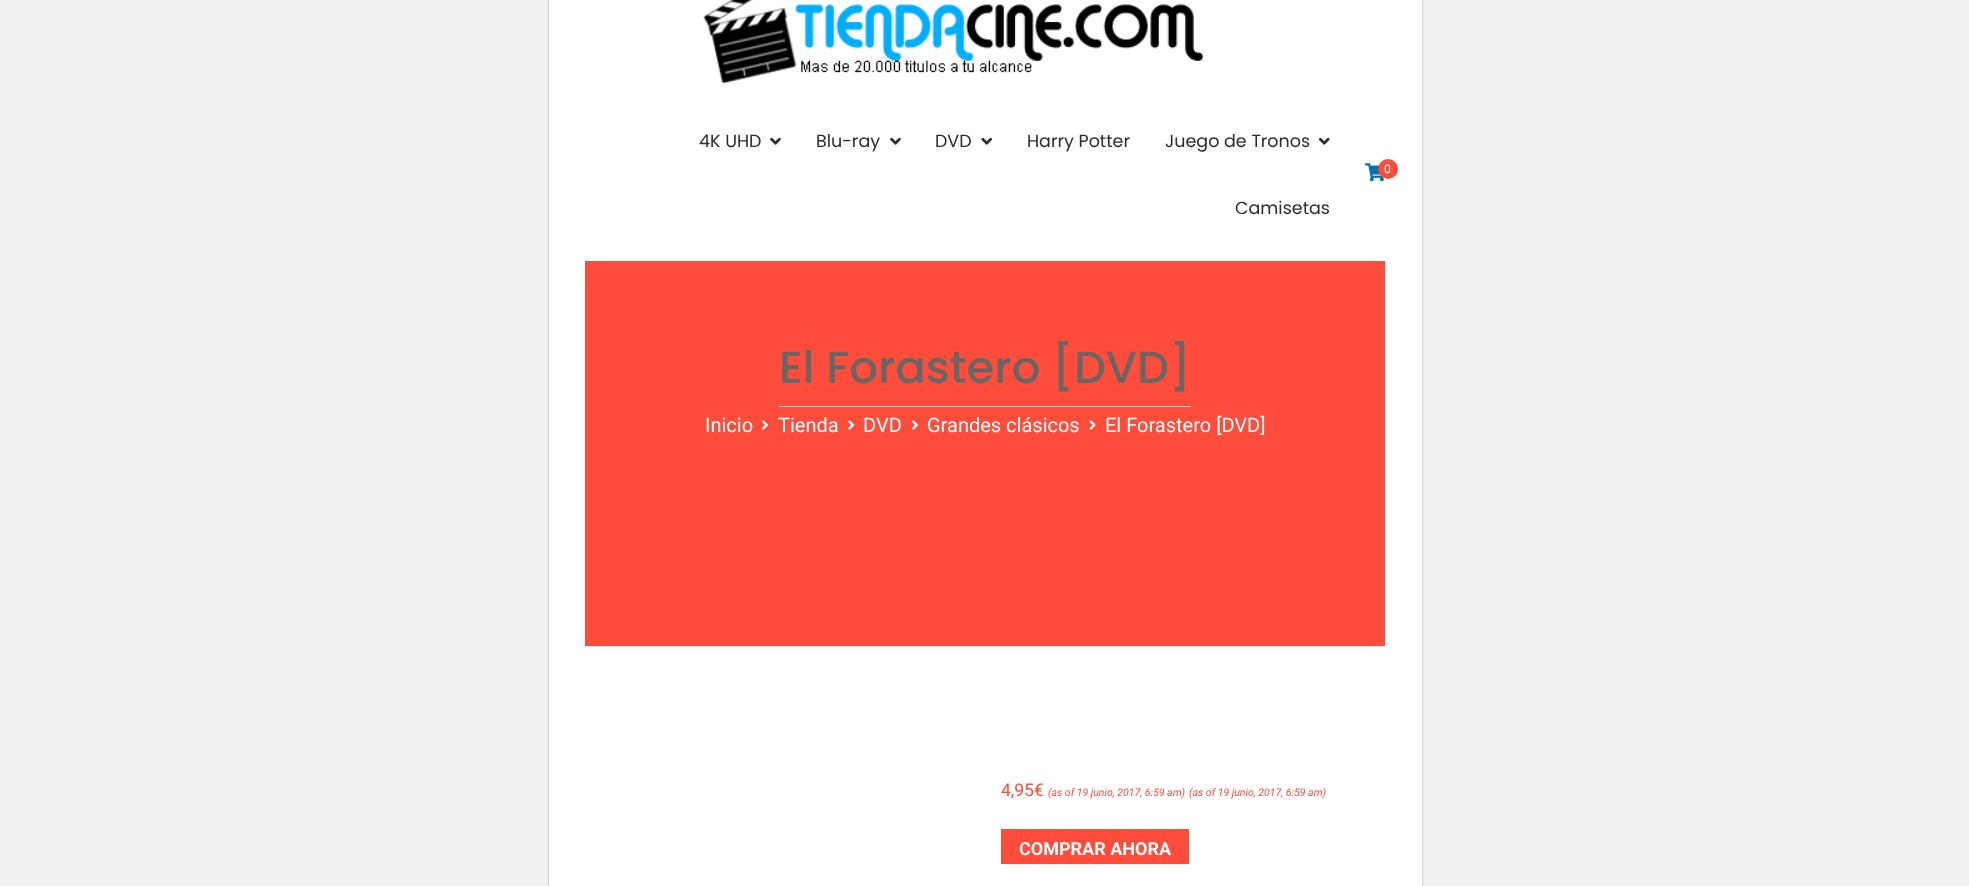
<svg xmlns="http://www.w3.org/2000/svg" width="1969" height="886">
<rect width="100%" height="100%" fill="#f1f1f1"/>
<rect x="548.5" y="-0.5" width="874" height="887" fill="#fff" stroke="#ccd0d4"/>
<image x="703" y="0" width="500" height="84" href="media/1.png"/>
<text x="699" y="147" style="font-family:Poppins;font-size:17.5px;fill:#2d2d2d">4K UHD</text>
<image x="770" y="137" width="11" height="8" href="media/2.png"/>
<text x="816" y="147" style="font-family:Poppins;font-size:17.5px;fill:#2d2d2d">Blu-ray</text>
<image x="890" y="137" width="11" height="8" href="media/2.png"/>
<text x="935" y="147" style="font-family:Poppins;font-size:17.5px;fill:#2d2d2d">DVD</text>
<image x="981" y="137" width="12" height="8" href="media/3.png"/>
<text x="1027" y="147" style="font-family:Poppins;font-size:17.5px;fill:#2d2d2d">Harry Potter</text>
<text x="1165" y="147" style="font-family:Poppins;font-size:17.5px;fill:#2d2d2d">Juego de Tronos</text>
<image x="1318" y="137" width="12" height="8" href="media/4.png"/>
<text x="1235" y="214" style="font-family:Poppins;font-size:17.5px;fill:#2d2d2d">Camisetas</text>
<image x="1365" y="163" width="19" height="19" href="media/5.png"/>
<circle cx="1388" cy="169" r="10" fill="#ff4c3b"/>
<text x="1384" y="173" style="font-family:Roboto;font-size:12px;fill:#fff">0</text>
<rect x="585" y="261" width="800" height="385" fill="#ff4c3b"/>
<rect x="779" y="406" width="412" height="1" fill="#dadada"/>
<text x="779" y="383" style="font-family:Poppins;font-size:45px;font-weight:500;fill:#666">El Forastero [DVD]</text>
<text x="705" y="432" style="font-family:Roboto;font-size:20px;fill:#fff">Inicio</text>
<image x="762" y="420" width="6" height="10" href="media/6.png"/>
<text x="778" y="432" style="font-family:Roboto;font-size:20px;fill:#fff">Tienda</text>
<image x="848" y="420" width="7" height="10" href="media/7.png"/>
<text x="863" y="432" style="font-family:Roboto;font-size:20px;fill:#fff">DVD</text>
<image x="912" y="420" width="6" height="10" href="media/6.png"/>
<text x="927" y="432" style="font-family:Roboto;font-size:20px;fill:#fff">Grandes clásicos</text>
<image x="1089" y="420" width="7" height="10" href="media/8.png"/>
<text x="1105" y="432" style="font-family:Roboto;font-size:20px;fill:#fff">El Forastero [DVD]</text>
<text x="1001" y="796" style="font-family:Roboto;font-size:17.5px;fill:#ff4c3b">4,95€</text>
<text x="1048" y="796" style="font-family:Roboto;font-size:10.5px;font-style:italic;fill:#ff4c3b">(as of 19 junio, 2017, 6:59 am)</text>
<text x="1189" y="796" style="font-family:Roboto;font-size:10.5px;font-style:italic;fill:#ff4c3b">(as of 19 junio, 2017, 6:59 am)</text>
<rect x="1001" y="829" width="188" height="35" fill="#ff4c3b"/>
<text x="1019" y="855" style="font-family:Roboto;font-size:18px;font-weight:bold;fill:#fff">COMPRAR AHORA</text>
</svg>
